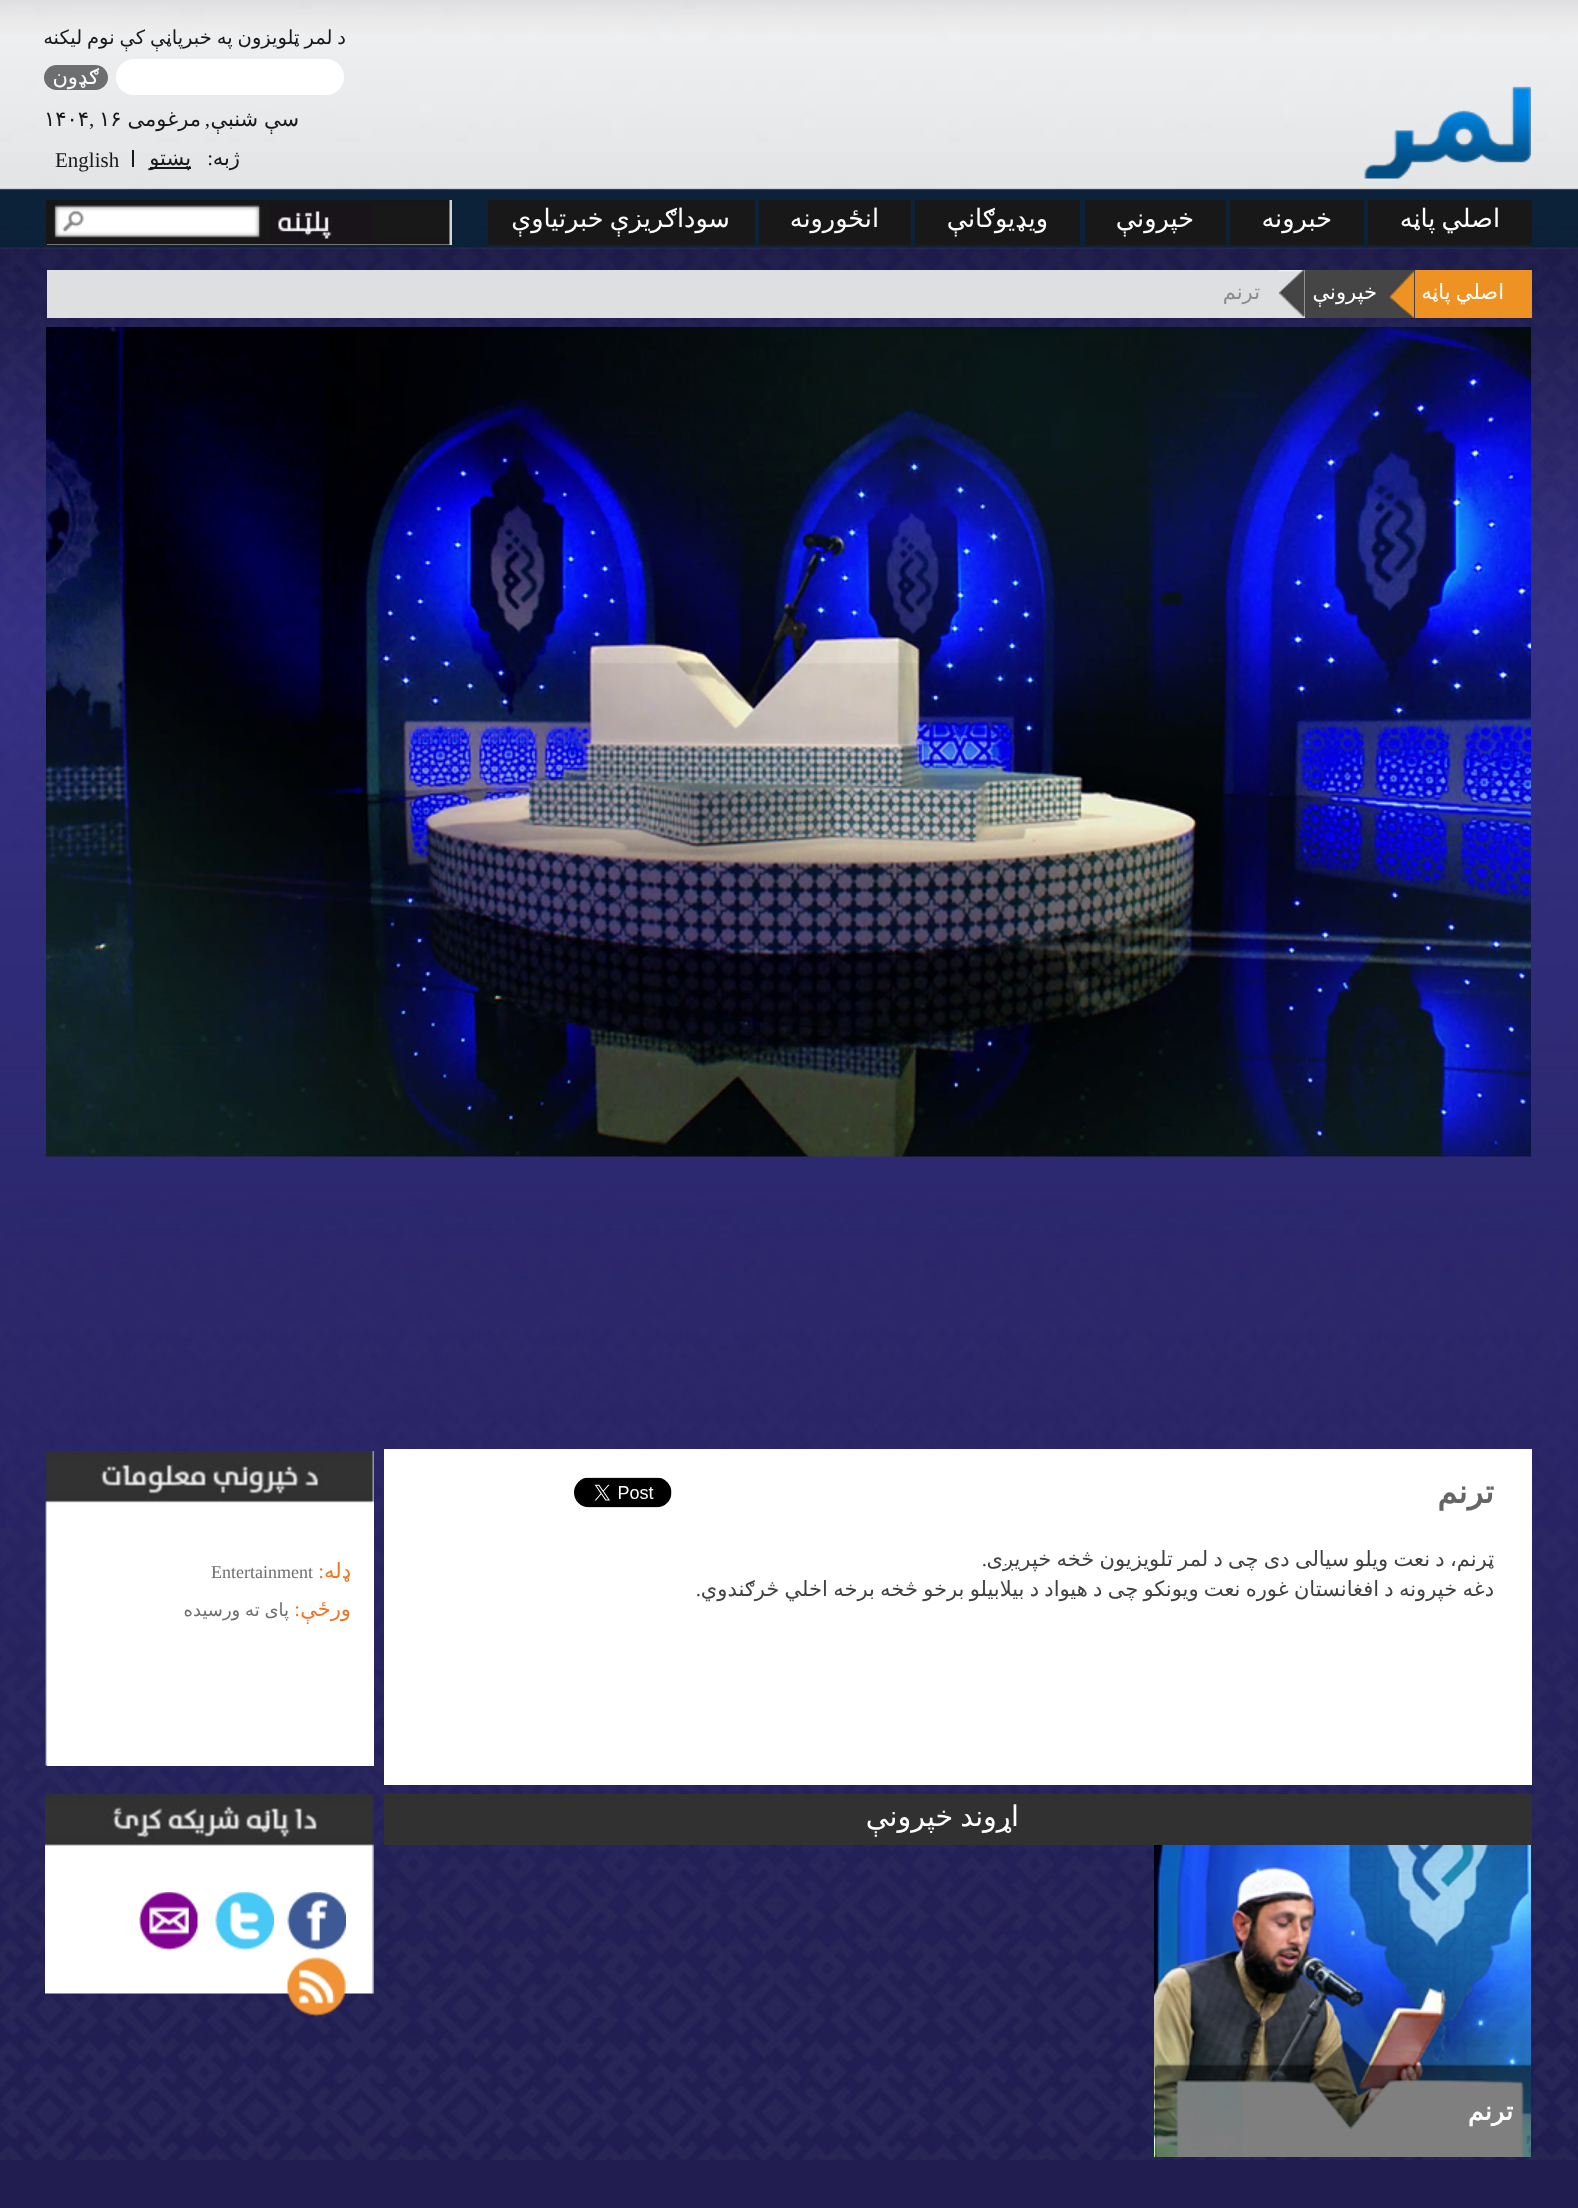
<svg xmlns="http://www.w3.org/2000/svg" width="1578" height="2208">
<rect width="100%" height="100%" fill="#211d50"/>
<image x="0" y="0" width="1578" height="2160" href="media/1.png"/>
<text x="346" y="44" word-spacing="-1.25" style="font-family:DejaVu Sans;font-size:19.5px;direction:rtl;fill:#181818">د لمر ټلویزون په خبرپاڼې کې نوم لیکنه</text>
<rect x="116" y="59" width="228" height="36" rx="18" fill="#fff"/>
<rect x="44" y="65" width="64" height="25" rx="12.5" fill="#6d6e70"/>
<text x="99" y="84" style="font-family:DejaVu Sans;font-size:21px;direction:rtl;fill:#fff">ګډون</text>
<image x="1364" y="86" width="167" height="93" href="media/2.png"/>
<text x="299" y="126" word-spacing="-1" style="font-family:DejaVu Sans;font-size:21px;direction:rtl;fill:#181818">سې شنبې</text>
<text x="210" y="126" style="font-family:Liberation Serif;font-size:21px;direction:rtl;fill:#181818">,</text>
<text x="201" y="126" style="font-family:DejaVu Sans;font-size:21px;direction:rtl;fill:#181818">مرغومی</text>
<text x="99" y="126" style="font-family:DejaVu Sans;font-size:21px;fill:#181818">۱۶</text>
<text x="89" y="126" style="font-family:Liberation Serif;font-size:21px;fill:#181818">,</text>
<text x="44" y="126" style="font-family:DejaVu Sans;font-size:21px;fill:#181818">۱۴۰۴</text>
<rect x="132" y="150" width="2" height="17" fill="#181818"/>
<text x="240" y="165" style="font-family:DejaVu Sans;font-size:21px;direction:rtl;fill:#181818">ژبه</text>
<text x="213" y="165" style="font-family:Liberation Serif;font-size:21px;direction:rtl;fill:#181818">:</text>
<rect x="150" y="167" width="41" height="2" fill="#181818"/>
<text x="191" y="165" style="font-family:DejaVu Sans;font-size:21px;direction:rtl;fill:#181818">پښتو</text>
<text x="55" y="167" style="font-family:Liberation Serif;font-size:21px;fill:#181818">English</text>
<rect x="1368" y="200" width="164" height="45" fill="#181818"/>
<text x="1500" y="227" word-spacing="-2" style="font-family:DejaVu Sans;font-size:25.5px;direction:rtl;fill:#fff">اصلي پاڼه</text>
<rect x="1230" y="200" width="134" height="45" fill="#181818"/>
<text x="1332" y="227" style="font-family:DejaVu Sans;font-size:25.5px;direction:rtl;fill:#fff">خبرونه</text>
<rect x="1085" y="200" width="141" height="45" fill="#181818"/>
<text x="1194" y="227" style="font-family:DejaVu Sans;font-size:25.5px;direction:rtl;fill:#fff">خپرونې</text>
<rect x="915" y="200" width="165" height="45" fill="#181818"/>
<text x="1048" y="227" style="font-family:DejaVu Sans;font-size:25.5px;direction:rtl;fill:#fff">ویډیوګانې</text>
<rect x="759" y="200" width="152" height="45" fill="#181818"/>
<text x="879" y="227" style="font-family:DejaVu Sans;font-size:25.5px;direction:rtl;fill:#fff">انځورونه</text>
<rect x="488" y="200" width="267" height="45" fill="#181818"/>
<text x="730" y="227" word-spacing="-2" style="font-family:DejaVu Sans;font-size:25.5px;direction:rtl;fill:#fff">سوداګریزې خبرتیاوې</text>
<rect x="47" y="200" width="405" height="45" fill="#d3d4d5"/>
<image x="46" y="200" width="404" height="45" href="media/3.png"/>
<image x="62" y="210" width="22" height="22" href="media/4.png"/>
<rect x="47" y="270" width="1258" height="48" fill="#dedfe0"/>
<rect x="1415" y="270" width="117" height="48" fill="#ee9323"/>
<text x="1504" y="299" word-spacing="-1.4" style="font-family:DejaVu Sans;font-size:21px;direction:rtl;fill:#fff">اصلي پاڼه</text>
<rect x="1305" y="270" width="110" height="48" fill="#454545"/>
<image x="1389" y="271" width="25" height="47" href="media/5.png"/>
<text x="1377" y="299" style="font-family:DejaVu Sans;font-size:21px;direction:rtl;fill:#fff">خپرونې</text>
<image x="1279" y="270" width="26" height="47" href="media/6.png"/>
<text x="1260" y="299" style="font-family:DejaVu Sans;font-size:21px;direction:rtl;fill:#8a8b8d">ترنم</text>
<image x="46" y="327" width="1485" height="830" href="media/7.png"/>
<rect x="384" y="1449" width="1148" height="336" fill="#fff"/>
<text x="1494" y="1503" style="font-family:DejaVu Sans;font-size:32px;font-weight:bold;direction:rtl;fill:#666566">ترنم</text>
<image x="574" y="1477" width="98" height="31" href="media/8.png"/>
<text x="1494" y="1566" word-spacing="-1.4" style="font-family:DejaVu Sans;font-size:21px;direction:rtl;fill:#414042">ټرنم، د نعت ویلو سیالی دی چی د لمر تلویزیون څخه خپریږی</text>
<text x="987" y="1566" style="font-family:Liberation Serif;font-size:21px;direction:rtl;fill:#414042">.</text>
<text x="1494" y="1596" word-spacing="-1.4" style="font-family:DejaVu Sans;font-size:21px;direction:rtl;fill:#414042">دغه خپرونه د افغانستان غوره نعت ویونکو چی د هیواد د بیلابیلو برخو څخه برخه اخلي څرګندوي</text>
<text x="701" y="1596" style="font-family:Liberation Serif;font-size:21px;direction:rtl;fill:#414042">.</text>
<rect x="47" y="1451" width="327" height="315" fill="#fff"/>
<image x="45" y="1451" width="329" height="315" href="media/9.png"/>
<text x="351" y="1578" style="font-family:DejaVu Sans;font-size:21px;direction:rtl;fill:#ee7623">ډله</text>
<text x="324" y="1578" style="font-family:Liberation Serif;font-size:21px;direction:rtl;fill:#ee7623">:</text>
<text x="211" y="1578" style="font-family:Liberation Serif;font-size:18px;fill:#6d6e70">Entertainment</text>
<text x="351" y="1616" style="font-family:DejaVu Sans;font-size:21px;direction:rtl;fill:#ee7623">ورځې</text>
<text x="300" y="1616" style="font-family:Liberation Serif;font-size:21px;direction:rtl;fill:#ee7623">:</text>
<text x="289" y="1616" word-spacing="-1" style="font-family:DejaVu Sans;font-size:18px;direction:rtl;fill:#6d6e70">پای ته ورسیده</text>
<image x="45" y="1793" width="329" height="201" href="media/10.png"/>
<image x="287" y="1892" width="59" height="59" href="media/11.png"/>
<image x="215" y="1892" width="59" height="59" href="media/12.png"/>
<image x="139" y="1892" width="59" height="59" href="media/13.png"/>
<image x="287" y="1957" width="59" height="60" href="media/14.png"/>
<rect x="384" y="1794" width="1148" height="51" fill="#313131"/>
<text x="1019" y="1826" word-spacing="-2" style="font-family:DejaVu Sans;font-size:28.5px;direction:rtl;fill:#fff">اړوند خپرونې</text>
<image x="1154" y="1845" width="377" height="312" href="media/15.png"/>
<image x="1155" y="2040" width="376" height="117" href="media/16.png"/>
<text x="1513" y="2120" style="font-family:DejaVu Sans;font-size:25.5px;font-weight:bold;direction:rtl;fill:#fff">ترنم</text>
</svg>
